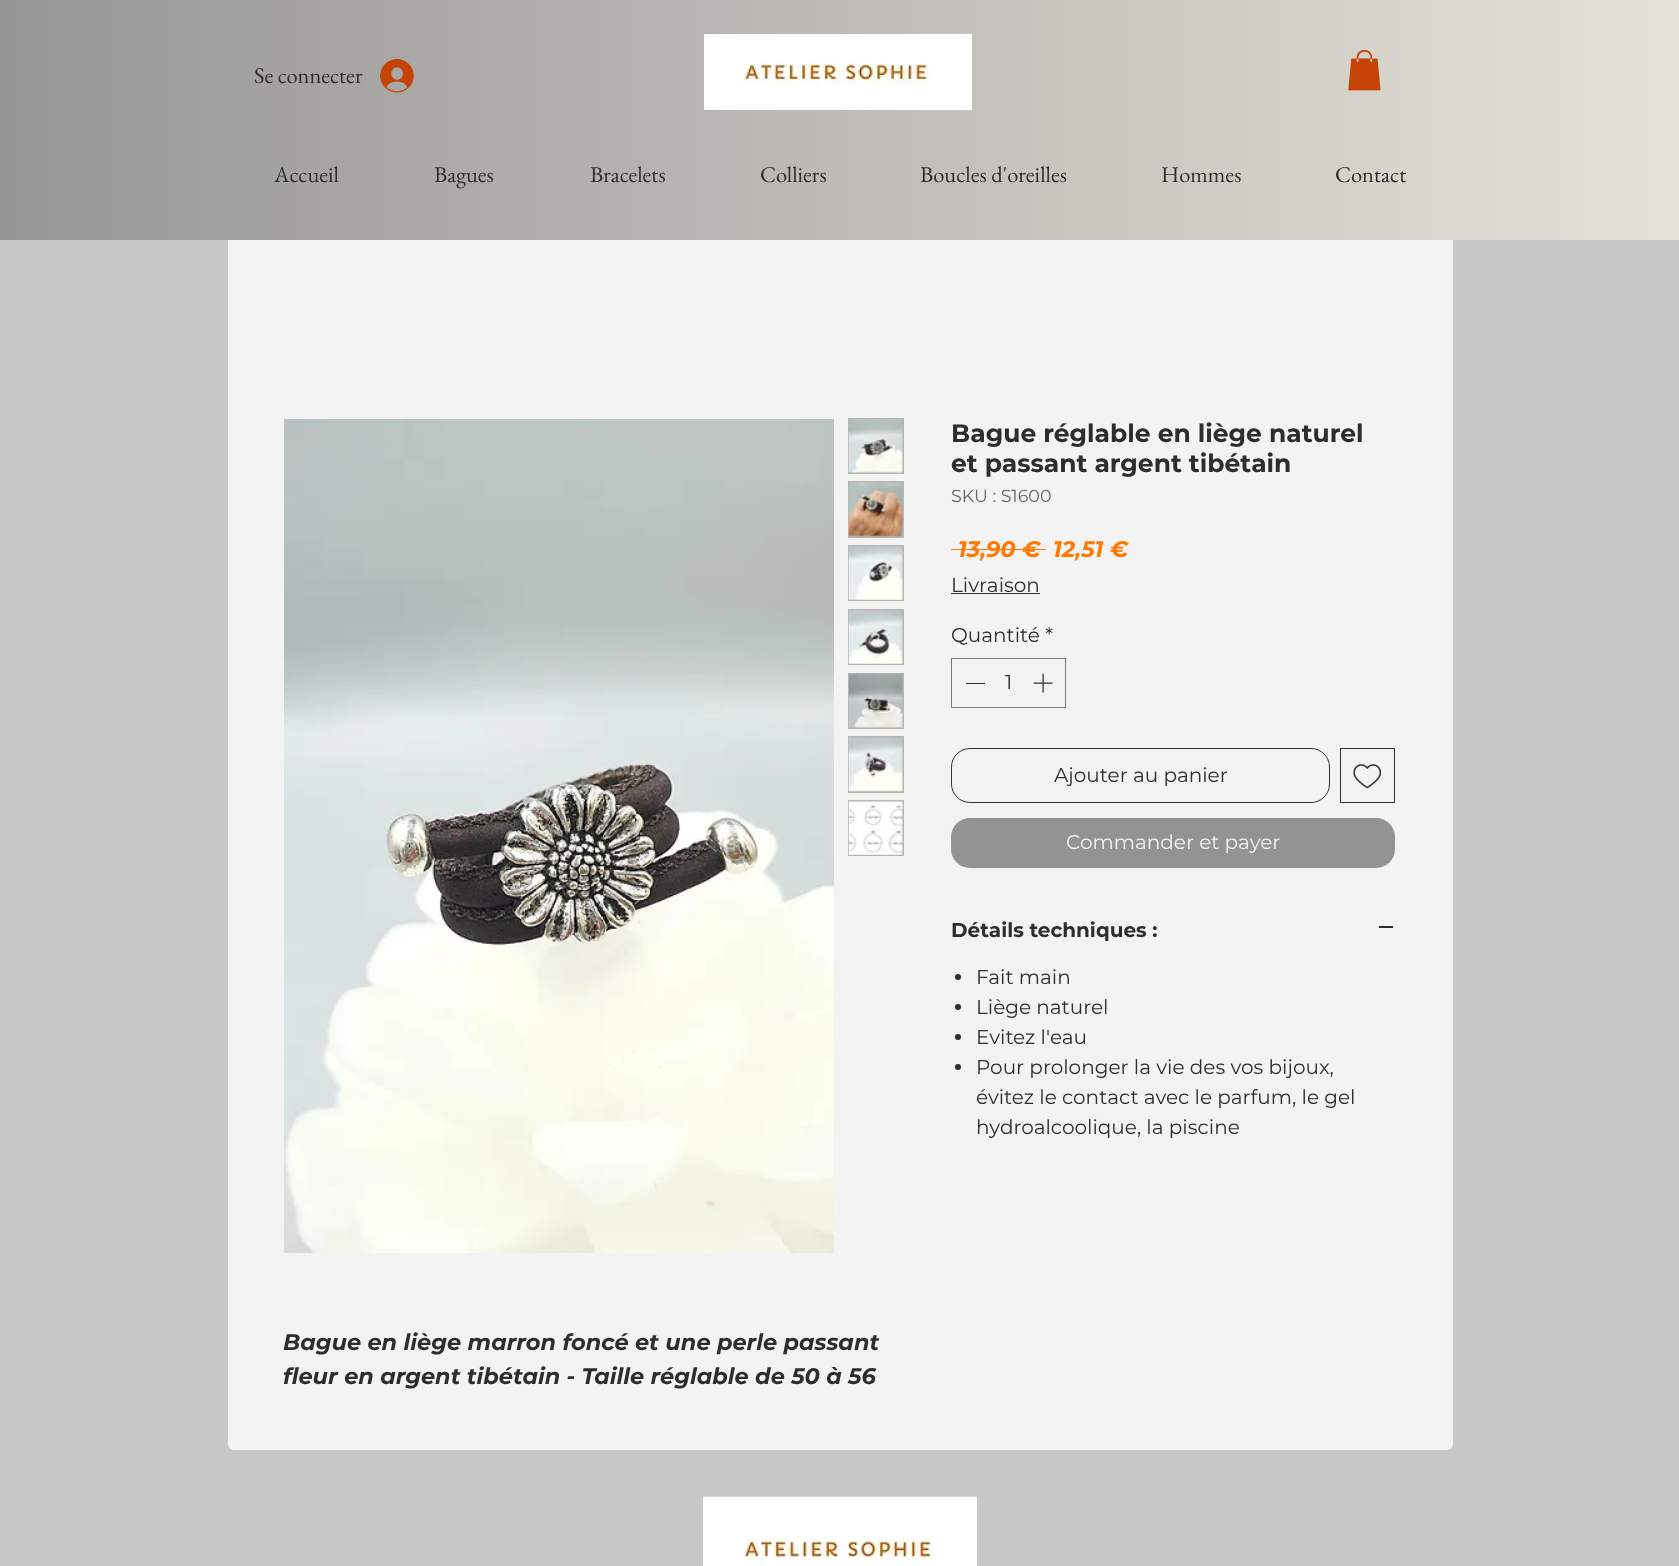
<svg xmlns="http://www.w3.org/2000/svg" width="1679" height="1566">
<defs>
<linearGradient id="g1" gradientUnits="userSpaceOnUse" x1="0" y1="120" x2="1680" y2="120"><stop offset="0" stop-color="#969696"/><stop offset="1" stop-color="#e5e1d7"/></linearGradient>
</defs>
<rect width="100%" height="100%" fill="#c8c8c8"/>
<rect width="1679" height="240" fill="url(#g1)"/>
<text x="254" y="83" style="font-family:EB Garamond;font-size:22.5px;fill:#332e26">Se connecter</text>
<image x="380" y="59" width="34" height="34" href="media/1.png"/>
<image x="704" y="34" width="268" height="76" href="media/2.png"/>
<image x="1348" y="50" width="33" height="41" href="media/3.png"/>
<text x="274" y="182" style="font-family:EB Garamond;font-size:22.5px;fill:#2e2d2d">Accueil</text>
<text x="434" y="182" style="font-family:EB Garamond;font-size:22.5px;fill:#2e2d2d">Bagues</text>
<text x="590" y="182" style="font-family:EB Garamond;font-size:22.5px;fill:#2e2d2d">Bracelets</text>
<text x="760" y="182" style="font-family:EB Garamond;font-size:22.5px;fill:#2e2d2d">Colliers</text>
<text x="920" y="182" style="font-family:EB Garamond;font-size:22.5px;fill:#2e2d2d">Boucles d'oreilles</text>
<text x="1161" y="182" style="font-family:EB Garamond;font-size:22.5px;fill:#2e2d2d">Hommes</text>
<text x="1335" y="182" style="font-family:EB Garamond;font-size:22.5px;fill:#2e2d2d">Contact</text>
<path d="M228 240h1225v1204c0 3.5-2.5 6-6 6h-1213c-3.5 0-6-2.5-6-6z" fill="#f3f3f3"/>
<text x="951" y="442" style="font-family:Montserrat;font-size:25px;font-weight:bold;fill:#2e2d2d">Bague réglable en liège naturel</text>
<text x="951" y="472" style="font-family:Montserrat;font-size:25px;font-weight:bold;fill:#2e2d2d">et passant argent tibétain</text>
<text x="951" y="502" style="font-family:Montserrat;font-size:17.5px;fill:#646464">SKU : S1600</text>
<text x="958" y="557" style="font-family:Montserrat;font-size:22.5px;font-weight:bold;font-style:italic;fill:#ff7900">13,90 €</text>
<rect x="951" y="549" width="95" height="1" fill="#ff7900"/>
<text x="1053" y="557" style="font-family:Montserrat;font-size:22.5px;font-weight:bold;font-style:italic;fill:#ff7900">12,51 €</text>
<text x="951" y="592" style="font-family:Montserrat;font-size:20px;fill:#2e2d2d">Livraison</text>
<rect x="951" y="593" width="89" height="1" fill="#323232"/>
<text x="951" y="642" style="font-family:Montserrat;font-size:20px;fill:#2e2d2d">Quantité *</text>
<rect x="951.5" y="658.5" width="114" height="49" fill="none" stroke="#7d7c7c"/>
<rect x="966" y="683" width="19" height="1" fill="#2e2d2d"/>
<text x="1005" y="689" style="font-family:Montserrat;font-size:20px;fill:#2e2d2d">1</text>
<image x="1033" y="673" width="20" height="20" href="media/4.png"/>
<rect x="951.5" y="748.5" width="378" height="54" rx="18.5" fill="none" stroke="#323232"/>
<text x="1054" y="782" style="font-family:Montserrat;font-size:20px;fill:#2e2d2d">Ajouter au panier</text>
<rect x="1340.5" y="748.5" width="54" height="54" fill="none" stroke="#323232"/>
<image x="1353" y="764" width="29" height="25" href="media/5.png"/>
<rect x="951" y="818" width="444" height="50" rx="19" fill="#939393"/>
<text x="1066" y="849" style="font-family:Montserrat;font-size:20px;fill:#f3f3f3">Commander et payer</text>
<text x="951" y="937" style="font-family:Montserrat;font-size:20px;font-weight:bold;fill:#2e2d2d">Détails techniques :</text>
<rect x="1379" y="926" width="14" height="2" fill="#2e2d2d"/>
<circle cx="958" cy="977" r="3" fill="#2e2d2d"/>
<text x="976" y="984" style="font-family:Montserrat;font-size:20px;fill:#2e2d2d">Fait main</text>
<circle cx="958" cy="1007" r="3" fill="#2e2d2d"/>
<text x="976" y="1014" style="font-family:Montserrat;font-size:20px;fill:#2e2d2d">Liège naturel</text>
<circle cx="958" cy="1037" r="3" fill="#2e2d2d"/>
<text x="976" y="1044" style="font-family:Montserrat;font-size:20px;fill:#2e2d2d">Evitez l'eau</text>
<circle cx="958" cy="1067" r="3" fill="#2e2d2d"/>
<text x="976" y="1074" style="font-family:Montserrat;font-size:20px;fill:#2e2d2d">Pour prolonger la vie des vos bijoux,</text>
<text x="976" y="1104" style="font-family:Montserrat;font-size:20px;fill:#2e2d2d">évitez le contact avec le parfum, le gel</text>
<text x="976" y="1134" style="font-family:Montserrat;font-size:20px;fill:#2e2d2d">hydroalcoolique, la piscine</text>
<image x="284" y="419" width="550" height="834" href="media/6.png"/>
<rect x="848" y="418" width="56" height="56" fill="#b9b5b3"/>
<image x="848" y="419" width="55" height="54" href="media/7.png"/>
<rect x="848" y="481" width="56" height="57" fill="#b9b5b3"/>
<image x="848" y="482" width="55" height="55" href="media/8.png"/>
<rect x="848" y="545" width="56" height="56" fill="#b9b5b3"/>
<image x="848" y="546" width="55" height="54" href="media/9.png"/>
<rect x="848" y="609" width="56" height="56" fill="#b9b5b3"/>
<image x="848" y="610" width="55" height="54" href="media/10.png"/>
<rect x="848" y="673" width="56" height="56" fill="#b9b5b3"/>
<image x="848" y="673" width="55" height="55" href="media/11.png"/>
<rect x="848" y="736" width="56" height="57" fill="#b9b5b3"/>
<image x="848" y="737" width="55" height="55" href="media/12.png"/>
<rect x="848" y="800" width="56" height="56" fill="#b9b5b3"/>
<image x="848" y="800" width="55" height="55" href="media/13.png"/>
<text x="283" y="1350" style="font-family:Montserrat;font-size:22.5px;font-weight:bold;font-style:italic;fill:#2e2d2d">Bague en liège marron foncé et une perle passant</text>
<text x="283" y="1384" style="font-family:Montserrat;font-size:22.5px;font-weight:bold;font-style:italic;fill:#2e2d2d">fleur en argent tibétain - Taille réglable de 50 à 56</text>
<image x="703" y="1496" width="274" height="70" href="media/14.png"/>
</svg>
